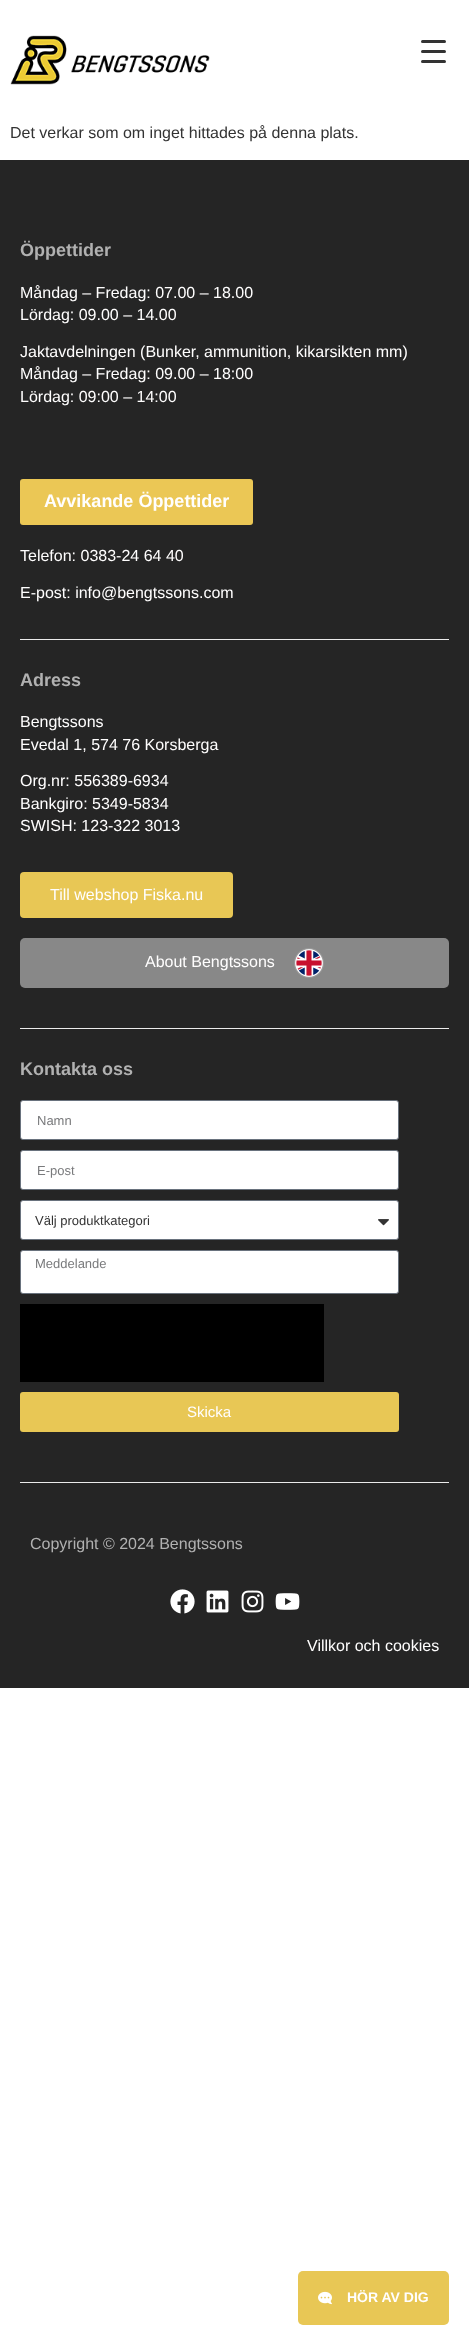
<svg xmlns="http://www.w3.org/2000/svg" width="469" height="2345">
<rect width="100%" height="100%" fill="#fff"/>
<image x="10" y="35" width="200" height="50" href="media/1.png"/>
<rect x="421" y="50" width="25" height="3" rx="1.5" fill="#333"/>
<rect x="421" y="40" width="25" height="3" rx="1.5" fill="#333"/>
<rect x="421" y="60" width="25" height="3" rx="1.5" fill="#333"/>
<text x="10" y="138" style="font-family:Liberation Sans;font-size:16px;fill:#333">Det verkar som om inget hittades på denna plats.</text>
<rect y="160" width="469" height="1528" fill="#252525"/>
<rect x="20" y="1482" width="429" height="1" fill="#ebebeb"/>
<rect x="20" y="639" width="429" height="1" fill="#ebebeb"/>
<text x="20" y="256" style="font-family:Liberation Sans;font-size:18px;font-weight:bold;fill:#b1b1b1">Öppettider</text>
<text x="20" y="298" style="font-family:Liberation Sans;font-size:16px;fill:#fffefe">Måndag – Fredag: 07.00 – 18.00</text>
<text x="20" y="320" style="font-family:Liberation Sans;font-size:16px;fill:#fffefe">Lördag: 09.00 – 14.00</text>
<text x="20" y="357" style="font-family:Liberation Sans;font-size:16px;fill:#fffefe">Jaktavdelningen (Bunker, ammunition, kikarsikten mm)</text>
<text x="20" y="379" style="font-family:Liberation Sans;font-size:16px;fill:#fffefe">Måndag – Fredag: 09.00 – 18:00</text>
<text x="20" y="402" style="font-family:Liberation Sans;font-size:16px;fill:#fffefe">Lördag: 09:00 – 14:00</text>
<rect x="20" y="479" width="233" height="46" rx="3" fill="#ebc755"/>
<text x="44" y="507" style="font-family:Liberation Sans;font-size:18px;font-weight:bold;fill:#fffefe">Avvikande Öppettider</text>
<text x="20" y="561" style="font-family:Liberation Sans;font-size:16px;fill:#fffefe">Telefon: 0383-24 64 40</text>
<text x="20" y="598" style="font-family:Liberation Sans;font-size:16px;fill:#fffefe">E-post: info@bengtssons.com</text>
<rect x="20" y="1028" width="429" height="1" fill="#ebebeb"/>
<text x="20" y="686" style="font-family:Liberation Sans;font-size:18px;font-weight:bold;fill:#b1b1b1">Adress</text>
<text x="20" y="727" style="font-family:Liberation Sans;font-size:16px;fill:#fffefe">Bengtssons</text>
<text x="20" y="750" style="font-family:Liberation Sans;font-size:16px;fill:#fffefe">Evedal 1, 574 76 Korsberga</text>
<text x="20" y="786" style="font-family:Liberation Sans;font-size:16px;fill:#fffefe">Org.nr: 556389-6934</text>
<text x="20" y="809" style="font-family:Liberation Sans;font-size:16px;fill:#fffefe">Bankgiro: 5349-5834</text>
<text x="20" y="831" style="font-family:Liberation Sans;font-size:16px;fill:#fffefe">SWISH: 123-322 3013</text>
<rect x="20" y="872" width="213" height="46" rx="4" fill="#e8c755"/>
<text x="50" y="900" style="font-family:Liberation Sans;font-size:16px;fill:#fffefe">Till webshop Fiska.nu</text>
<rect x="20" y="938" width="429" height="50" rx="5" fill="#888"/>
<text x="145" y="967" style="font-family:Liberation Sans;font-size:16px;fill:#fffefe">About Bengtssons</text>
<image x="294" y="948" width="30" height="30" href="media/2.png"/>
<text x="20" y="1075" style="font-family:Liberation Sans;font-size:18px;font-weight:bold;fill:#b1b1b1">Kontakta oss</text>
<rect x="20.5" y="1100.5" width="378" height="39" rx="2.5" fill="#fff" stroke="#69727d"/>
<text x="37" y="1125" style="font-family:Liberation Sans;font-size:13px;fill:#797a7c">Namn</text>
<rect x="20.5" y="1150.5" width="378" height="39" rx="2.5" fill="#fff" stroke="#69727d"/>
<text x="37" y="1175" style="font-family:Liberation Sans;font-size:13px;fill:#797a7c">E-post</text>
<rect x="20.5" y="1200.5" width="378" height="39" rx="2.5" fill="#fff" stroke="#69727d"/>
<text x="35" y="1225" style="font-family:Liberation Sans;font-size:13px;fill:#333">Välj produktkategori</text>
<image x="378" y="1219" width="11" height="7" href="media/3.png"/>
<rect x="20.5" y="1250.5" width="378" height="43" rx="2.5" fill="#fff" stroke="#69727d"/>
<text x="35" y="1268" style="font-family:Liberation Sans;font-size:13px;fill:#797a7c">Meddelande</text>
<rect x="20" y="1304" width="304" height="78" fill="#000"/>
<rect x="20" y="1392" width="379" height="40" rx="3" fill="#e8c755"/>
<text x="187" y="1417" style="font-family:Liberation Sans;font-size:15px;fill:#fffefe">Skicka</text>
<rect x="298" y="2271" width="151" height="54" rx="5" fill="#e8c755"/>
<image x="318" y="2291" width="14" height="14" href="media/4.png"/>
<text x="347" y="2302" style="font-family:Liberation Sans;font-size:14px;font-weight:bold;fill:#fffefe">HÖR AV DIG</text>
<text x="30" y="1549" style="font-family:Liberation Sans;font-size:16px;fill:#b1b1b1">Copyright © 2024 Bengtssons</text>
<image x="170" y="1589" width="25" height="25" href="media/5.png"/>
<image x="206" y="1590" width="23" height="23" href="media/6.png"/>
<image x="241" y="1590" width="23" height="23" href="media/7.png"/>
<image x="275" y="1593" width="25" height="17" href="media/8.png"/>
<text x="307" y="1651" style="font-family:Liberation Sans;font-size:16px;fill:#fffefe">Villkor och cookies</text>
</svg>
